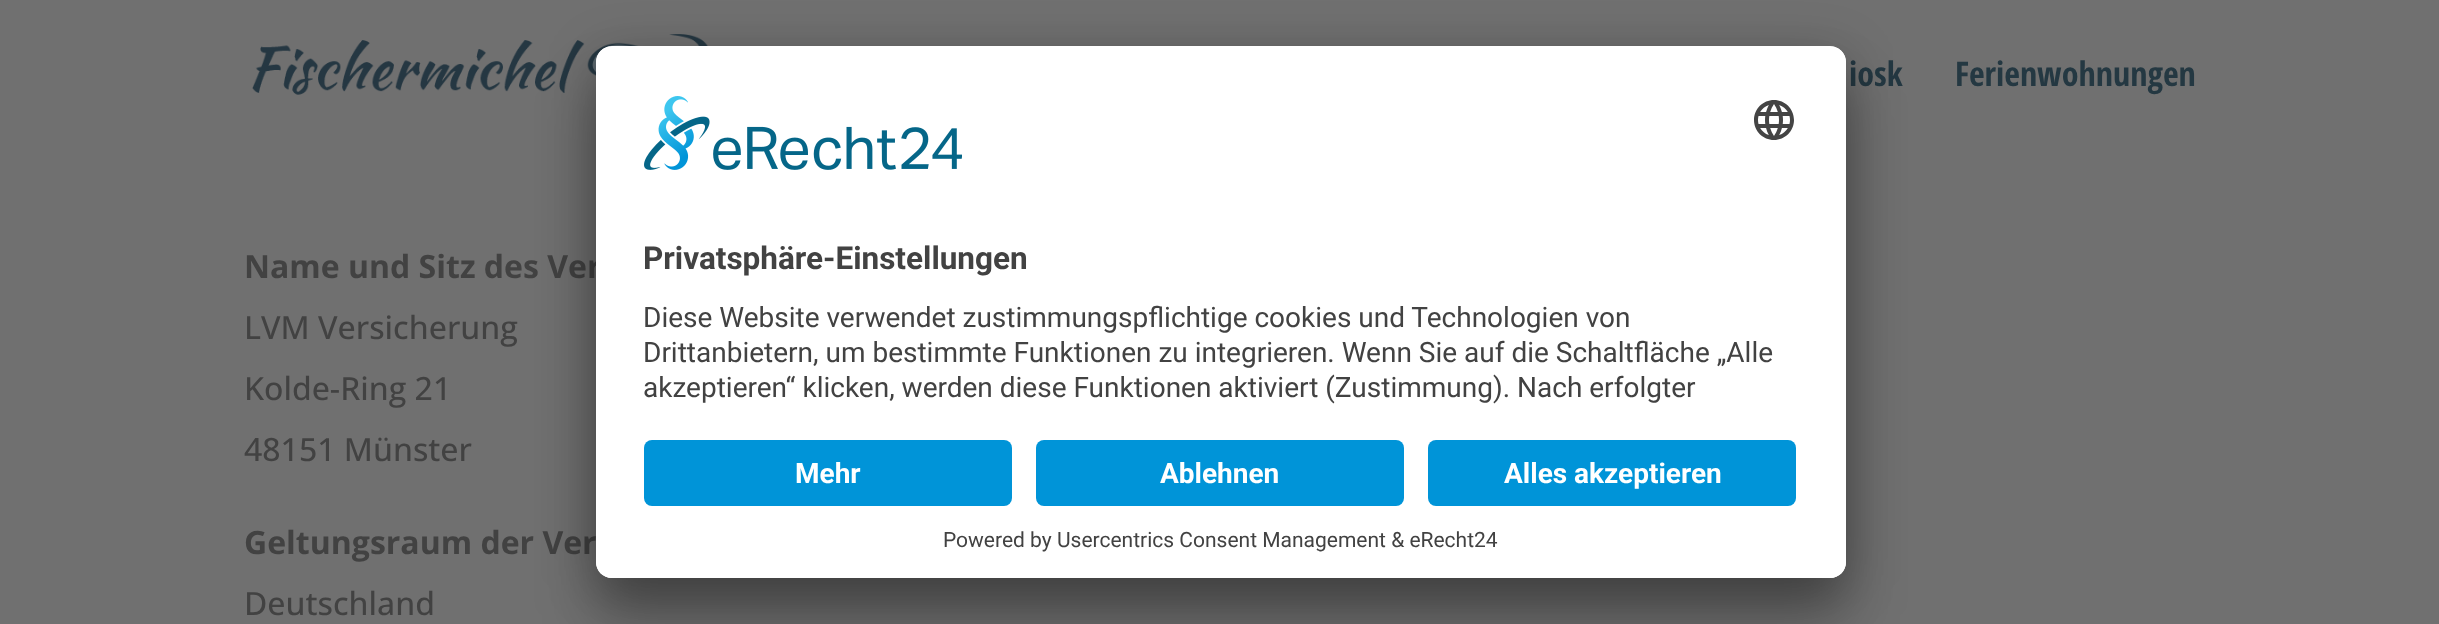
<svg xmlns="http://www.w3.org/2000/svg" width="2439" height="624">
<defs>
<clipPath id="clip1"><rect x="596" y="46" width="1250" height="532" rx="16"/></clipPath>
<clipPath id="clip2"><path d="M612 46h1218c9 0 16 7 16 16v362h-1250v-362c0-9 7-16 16-16z"/></clipPath>
</defs>
<rect width="100%" height="100%" fill="#707070"/>
<image x="252" y="34" width="456" height="61" href="media/1.png"/>
<text x="1849" y="86" style="font-family:Open Sans Condensed;font-size:34px;font-weight:bold;fill:#243842">iosk</text>
<text x="1955" y="86" style="font-family:Open Sans Condensed;font-size:34px;font-weight:bold;fill:#243842">Ferienwohnungen</text>
<text x="244" y="278" style="font-family:Open Sans;font-size:32px;font-weight:bold;fill:#424242">Name und Sitz des Ver</text>
<text x="244" y="339" style="font-family:Open Sans;font-size:32px;font-weight:500;fill:#424242">LVM Versicherung</text>
<text x="244" y="400" style="font-family:Open Sans;font-size:32px;font-weight:500;fill:#424242">Kolde-Ring 21</text>
<text x="244" y="461" style="font-family:Open Sans;font-size:32px;font-weight:500;fill:#424242">48151 Münster</text>
<text x="244" y="554" style="font-family:Open Sans;font-size:32px;font-weight:bold;fill:#424242">Geltungsraum der Ver</text>
<text x="244" y="615" style="font-family:Open Sans;font-size:32px;font-weight:500;fill:#424242">Deutschland</text>
<rect x="596" y="86" width="1250" height="532" rx="16" fill="#0000004d" filter="blur(28px)"/>
<rect x="596" y="56" width="1250" height="532" rx="16" fill="#00000038" filter="blur(26px)"/>
<rect x="596" y="46" width="1250" height="532" rx="16" fill="#fff"/>
<g clip-path="url(#clip1)">
<g clip-path="url(#clip2)">
<rect x="596" y="48" width="1250" height="376" fill="#fff"/>
</g>
</g>
<image x="644" y="96" width="318" height="74" href="media/2.png"/>
<image x="1754" y="100" width="40" height="40" href="media/3.png"/>
<text x="643" y="269" style="font-family:Roboto;font-size:31.5px;font-weight:bold;fill:#424242">Privatsphäre-Einstellungen</text>
<text x="643" y="327" style="font-family:Roboto;font-size:28px;fill:#424242">Diese Website verwendet zustimmungspflichtige cookies und Technologien von</text>
<text x="643" y="362" style="font-family:Roboto;font-size:28px;fill:#424242">Drittanbietern, um bestimmte Funktionen zu integrieren. Wenn Sie auf die Schaltfläche „Alle</text>
<text x="643" y="397" style="font-family:Roboto;font-size:28px;fill:#424242">akzeptieren“ klicken, werden diese Funktionen aktiviert (Zustimmung). Nach erfolgter</text>
<path d="M596 424h1250v138c0 9-7 16-16 16h-1218c-9 0-16-7-16-16z" fill="#fff"/>
<rect x="644" y="440" width="368" height="66" rx="8" fill="#0094d8"/>
<text x="795" y="483" style="font-family:Roboto;font-size:28px;font-weight:bold;fill:#fff">Mehr</text>
<rect x="1036" y="440" width="368" height="66" rx="8" fill="#0094d8"/>
<text x="1160" y="483" style="font-family:Roboto;font-size:28px;font-weight:bold;fill:#fff">Ablehnen</text>
<rect x="1428" y="440" width="368" height="66" rx="8" fill="#0094d8"/>
<text x="1504" y="483" style="font-family:Roboto;font-size:28px;font-weight:bold;fill:#fff">Alles akzeptieren</text>
<text x="943" y="547" style="font-family:Roboto;font-size:21px;fill:#424242">Powered by Usercentrics Consent Management &amp; eRecht24</text>
</svg>
